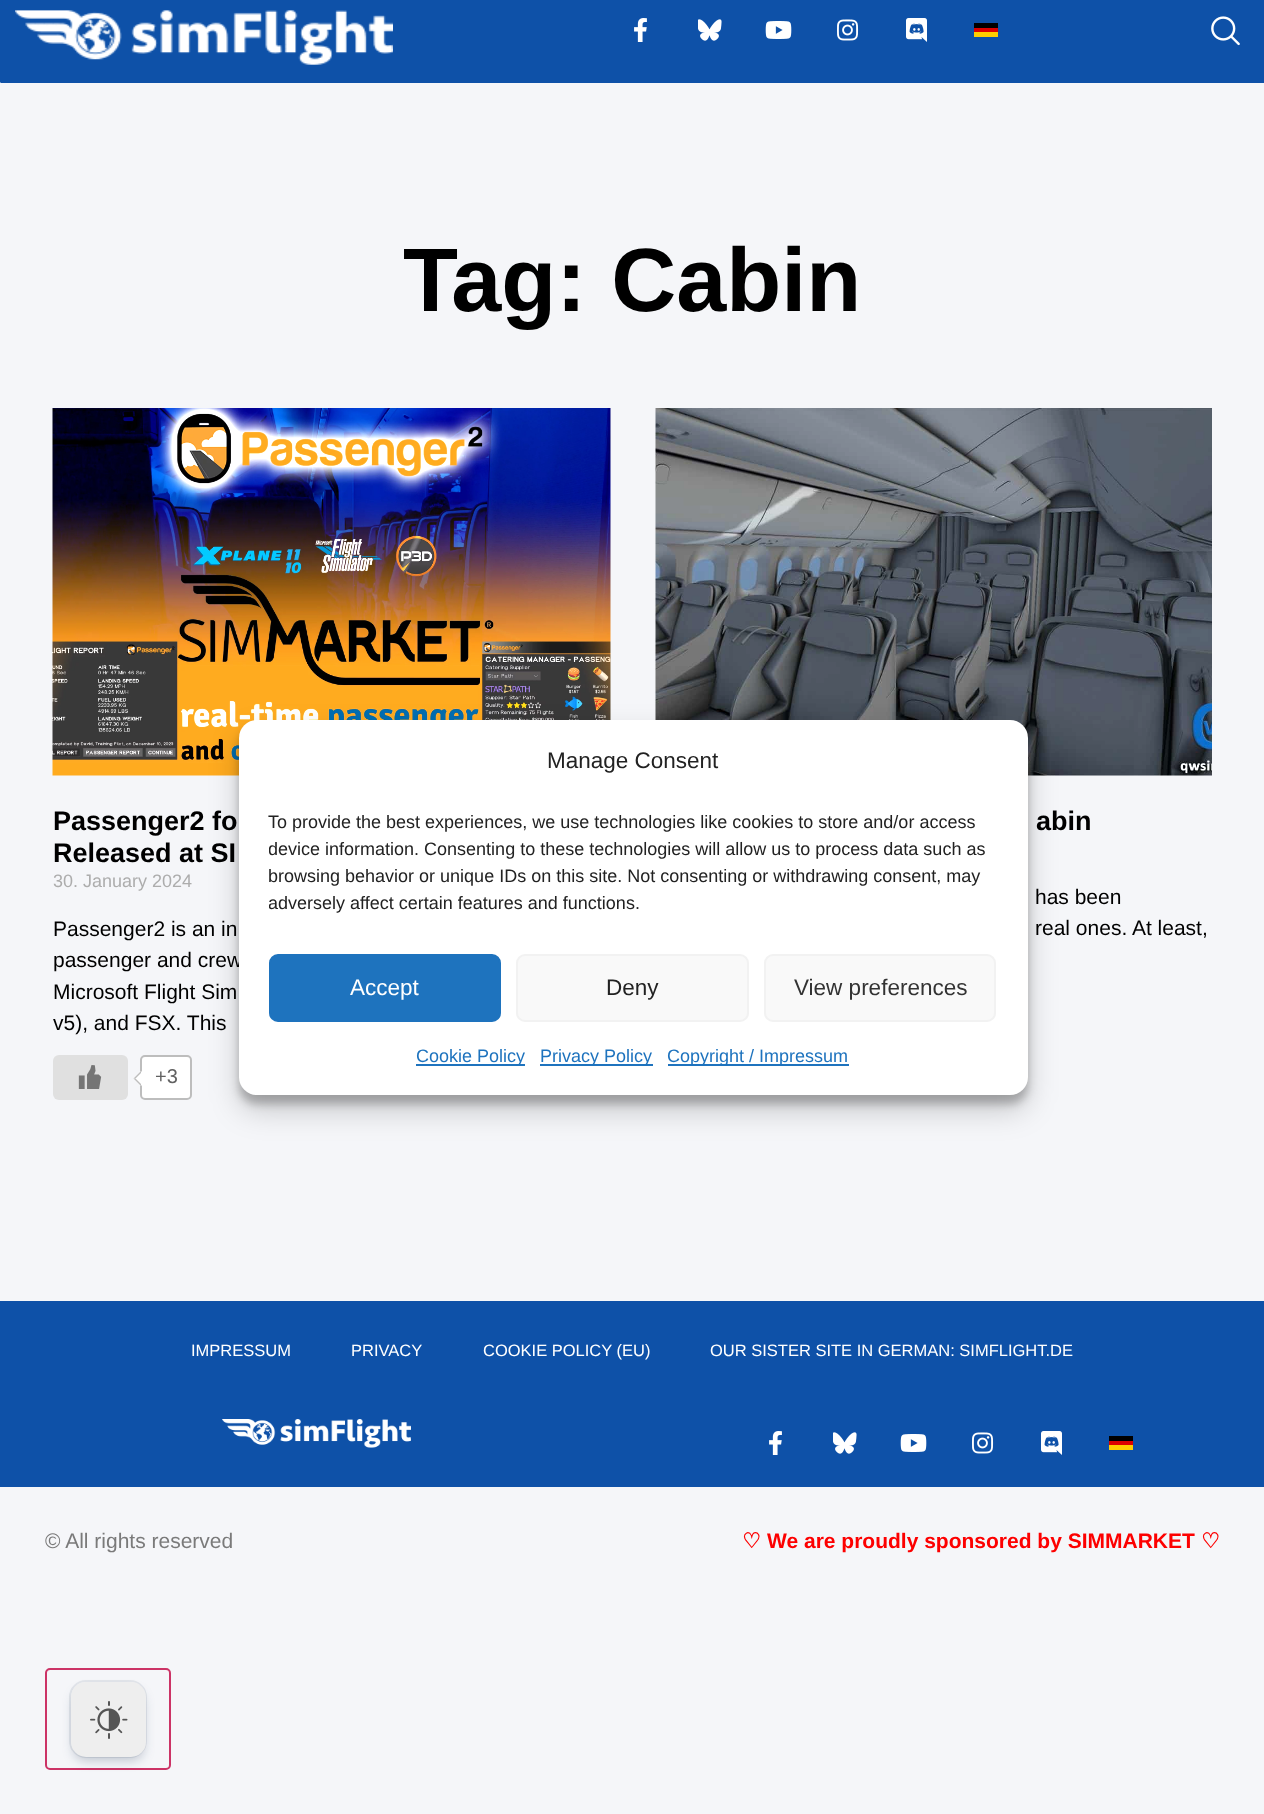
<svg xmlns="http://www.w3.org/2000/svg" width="1264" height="1814">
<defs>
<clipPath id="clip1"><rect x="269" y="809" width="729" height="115"/></clipPath>
</defs>
<rect width="100%" height="100%" fill="#f5f6f9"/>
<rect y="-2" width="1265" height="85" rx="1.5" fill="#0e51a8"/>
<image x="15" y="10" width="378" height="55" href="media/1.png"/>
<image x="634" y="18" width="13" height="24" href="media/2.png"/>
<image x="698" y="19" width="24" height="22" href="media/3.png"/>
<image x="765" y="21" width="27" height="18" href="media/4.png"/>
<image x="837" y="19" width="22" height="22" href="media/5.png"/>
<image x="906" y="18" width="21" height="24" href="media/6.png"/>
<rect x="974" y="23" width="24" height="5" fill="#000"/>
<rect x="974" y="28" width="24" height="4" fill="#d00"/>
<rect x="974" y="32" width="24" height="5" fill="#ffce00"/>
<image x="1211" y="16" width="29" height="30" href="media/7.png"/>
<text x="403" y="311" style="font-family:Liberation Sans;font-size:90px;font-weight:bold;fill:#000">Tag: Cabin</text>
<image x="52" y="408" width="559" height="368" href="media/8.png"/>
<text x="53" y="830" style="font-family:Liberation Sans;font-size:27px;font-weight:bold;fill:#000">Passenger2 fo</text>
<text x="53" y="862" style="font-family:Liberation Sans;font-size:27px;font-weight:bold;fill:#000">Released at SI</text>
<text x="53" y="887" style="font-family:Liberation Sans;font-size:18px;fill:#adadad">30. January 2024</text>
<text x="53" y="936" style="font-family:Liberation Sans;font-size:21px;fill:#000">Passenger2 is an in</text>
<text x="53" y="967" style="font-family:Liberation Sans;font-size:21px;fill:#000">passenger and crew</text>
<text x="53" y="999" style="font-family:Liberation Sans;font-size:21px;fill:#000">Microsoft Flight Sim</text>
<text x="53" y="1030" style="font-family:Liberation Sans;font-size:21px;fill:#000">v5), and FSX. This</text>
<rect x="53" y="1055" width="75" height="45" rx="6" fill="#e0e0e0"/>
<image x="78" y="1065" width="24" height="24" href="media/9.png"/>
<rect x="141" y="1056" width="50" height="43" rx="4" fill="#fff" stroke="#bdbdbd" stroke-width="2"/>
<path d="M141 1071l7.5 7.5l-7.5 7.5l-7.5-7.5z" fill="#fff"/>
<path d="M141 1086l-7.5-7.5h2l5.5 5.5z" fill="#bdbdbd"/>
<path d="M133.5 1078.5l7.5-7.5v2l-5.5 5.5z" fill="#bdbdbd"/>
<text x="155" y="1083" style="font-family:Liberation Sans;font-size:20px;fill:#616161">+3</text>
<image x="655" y="408" width="557" height="368" href="media/10.png"/>
<text x="1036" y="830" style="font-family:Liberation Sans;font-size:27px;font-weight:bold;fill:#000">abin</text>
<text x="1035" y="904" style="font-family:Liberation Sans;font-size:21px;fill:#000">has been</text>
<text x="1035" y="935" style="font-family:Liberation Sans;font-size:21px;fill:#000">real ones. At least,</text>
<rect x="239" y="729" width="789" height="375" rx="18" fill="#0000003b" filter="blur(4.5px)"/>
<rect x="239" y="735" width="789" height="375" rx="18" fill="#00000030" filter="blur(15px)"/>
<rect x="239" y="720" width="789" height="375" rx="18" fill="#fff"/>
<text x="547" y="768" style="font-family:Liberation Sans;font-size:22.5px;fill:#222">Manage Consent</text>
<text x="268" y="828" style="font-family:Liberation Sans;font-size:18px;fill:#222">To provide the best experiences, we use technologies like cookies to store and/or access</text>
<g clip-path="url(#clip1)">
<text x="268" y="855" style="font-family:Liberation Sans;font-size:18px;fill:#222">device information. Consenting to these technologies will allow us to process data such as</text>
</g>
<text x="268" y="882" style="font-family:Liberation Sans;font-size:18px;fill:#222">browsing behavior or unique IDs on this site. Not consenting or withdrawing consent, may</text>
<g clip-path="url(#clip1)">
<text x="268" y="909" style="font-family:Liberation Sans;font-size:18px;fill:#222">adversely affect certain features and functions.</text>
</g>
<rect x="270" y="955" width="230" height="66" rx="8" fill="#1e73be" stroke="#1e73be" stroke-width="2"/>
<text x="350" y="995" style="font-family:Liberation Sans;font-size:22.5px;fill:#fff">Accept</text>
<rect x="517" y="955" width="231" height="66" rx="8" fill="#f9f9f9" stroke="#f2f2f2" stroke-width="2"/>
<text x="606" y="995" style="font-family:Liberation Sans;font-size:22.5px;fill:#222">Deny</text>
<rect x="765" y="955" width="230" height="66" rx="8" fill="#f9f9f9" stroke="#f2f2f2" stroke-width="2"/>
<text x="794" y="995" style="font-family:Liberation Sans;font-size:22.5px;fill:#333">View preferences</text>
<rect x="416" y="1064" width="109" height="2" fill="#1e73be"/>
<text x="416" y="1062" style="font-family:Liberation Sans;font-size:18px;fill:#1e73be">Cookie Policy</text>
<rect x="540" y="1064" width="113" height="2" fill="#1e73be"/>
<text x="540" y="1062" style="font-family:Liberation Sans;font-size:18px;fill:#1e73be">Privacy Policy</text>
<rect x="668" y="1064" width="181" height="2" fill="#1e73be"/>
<text x="667" y="1062" style="font-family:Liberation Sans;font-size:18px;fill:#1e73be">Copyright / Impressum</text>
<rect y="1301" width="1264" height="186" fill="#0e51a8"/>
<text x="191" y="1356" style="font-family:Liberation Sans;font-size:16.5px;fill:#fff">IMPRESSUM</text>
<text x="351" y="1356" style="font-family:Liberation Sans;font-size:16.5px;fill:#fff">PRIVACY</text>
<text x="483" y="1356" style="font-family:Liberation Sans;font-size:16.5px;fill:#fff">COOKIE POLICY (EU)</text>
<text x="710" y="1356" style="font-family:Liberation Sans;font-size:16.5px;fill:#fff">OUR SISTER SITE IN GERMAN: SIMFLIGHT.DE</text>
<image x="222" y="1419" width="189" height="29" href="media/11.png"/>
<image x="769" y="1431" width="13" height="24" href="media/2.png"/>
<image x="833" y="1432" width="24" height="22" href="media/3.png"/>
<image x="900" y="1434" width="27" height="18" href="media/4.png"/>
<image x="972" y="1432" width="22" height="22" href="media/5.png"/>
<image x="1041" y="1431" width="21" height="24" href="media/6.png"/>
<rect x="1109" y="1436" width="24" height="5" fill="#000"/>
<rect x="1109" y="1441" width="24" height="4" fill="#d00"/>
<rect x="1109" y="1445" width="24" height="5" fill="#ffce00"/>
<text x="45" y="1548" style="font-family:Liberation Sans;font-size:21px;fill:#7a7a7a">© All rights reserved</text>
<text x="742" y="1548" style="font-family:DejaVu Sans;font-size:21px;font-weight:bold;fill:#fd0000">♡</text>
<text x="767" y="1548" style="font-family:Liberation Sans;font-size:21px;font-weight:bold;fill:#fd0000">We are proudly sponsored by SIMMARKET</text>
<text x="1201" y="1548" style="font-family:DejaVu Sans;font-size:21px;font-weight:bold;fill:#fd0000">♡</text>
<rect x="46" y="1669" width="124" height="100" rx="4" fill="none" stroke="#c36" stroke-width="2"/>
<rect x="70" y="1681" width="76" height="76" rx="16" fill="none" stroke="#e2e5ea" stroke-width="2"/>
<rect x="74" y="1691" width="69" height="69" rx="12" fill="#091e4240" filter="blur(6px)"/>
<rect x="71" y="1682" width="75" height="75" rx="15" fill="#eee"/>
<image x="90" y="1701" width="38" height="38" href="media/12.png"/>
</svg>
